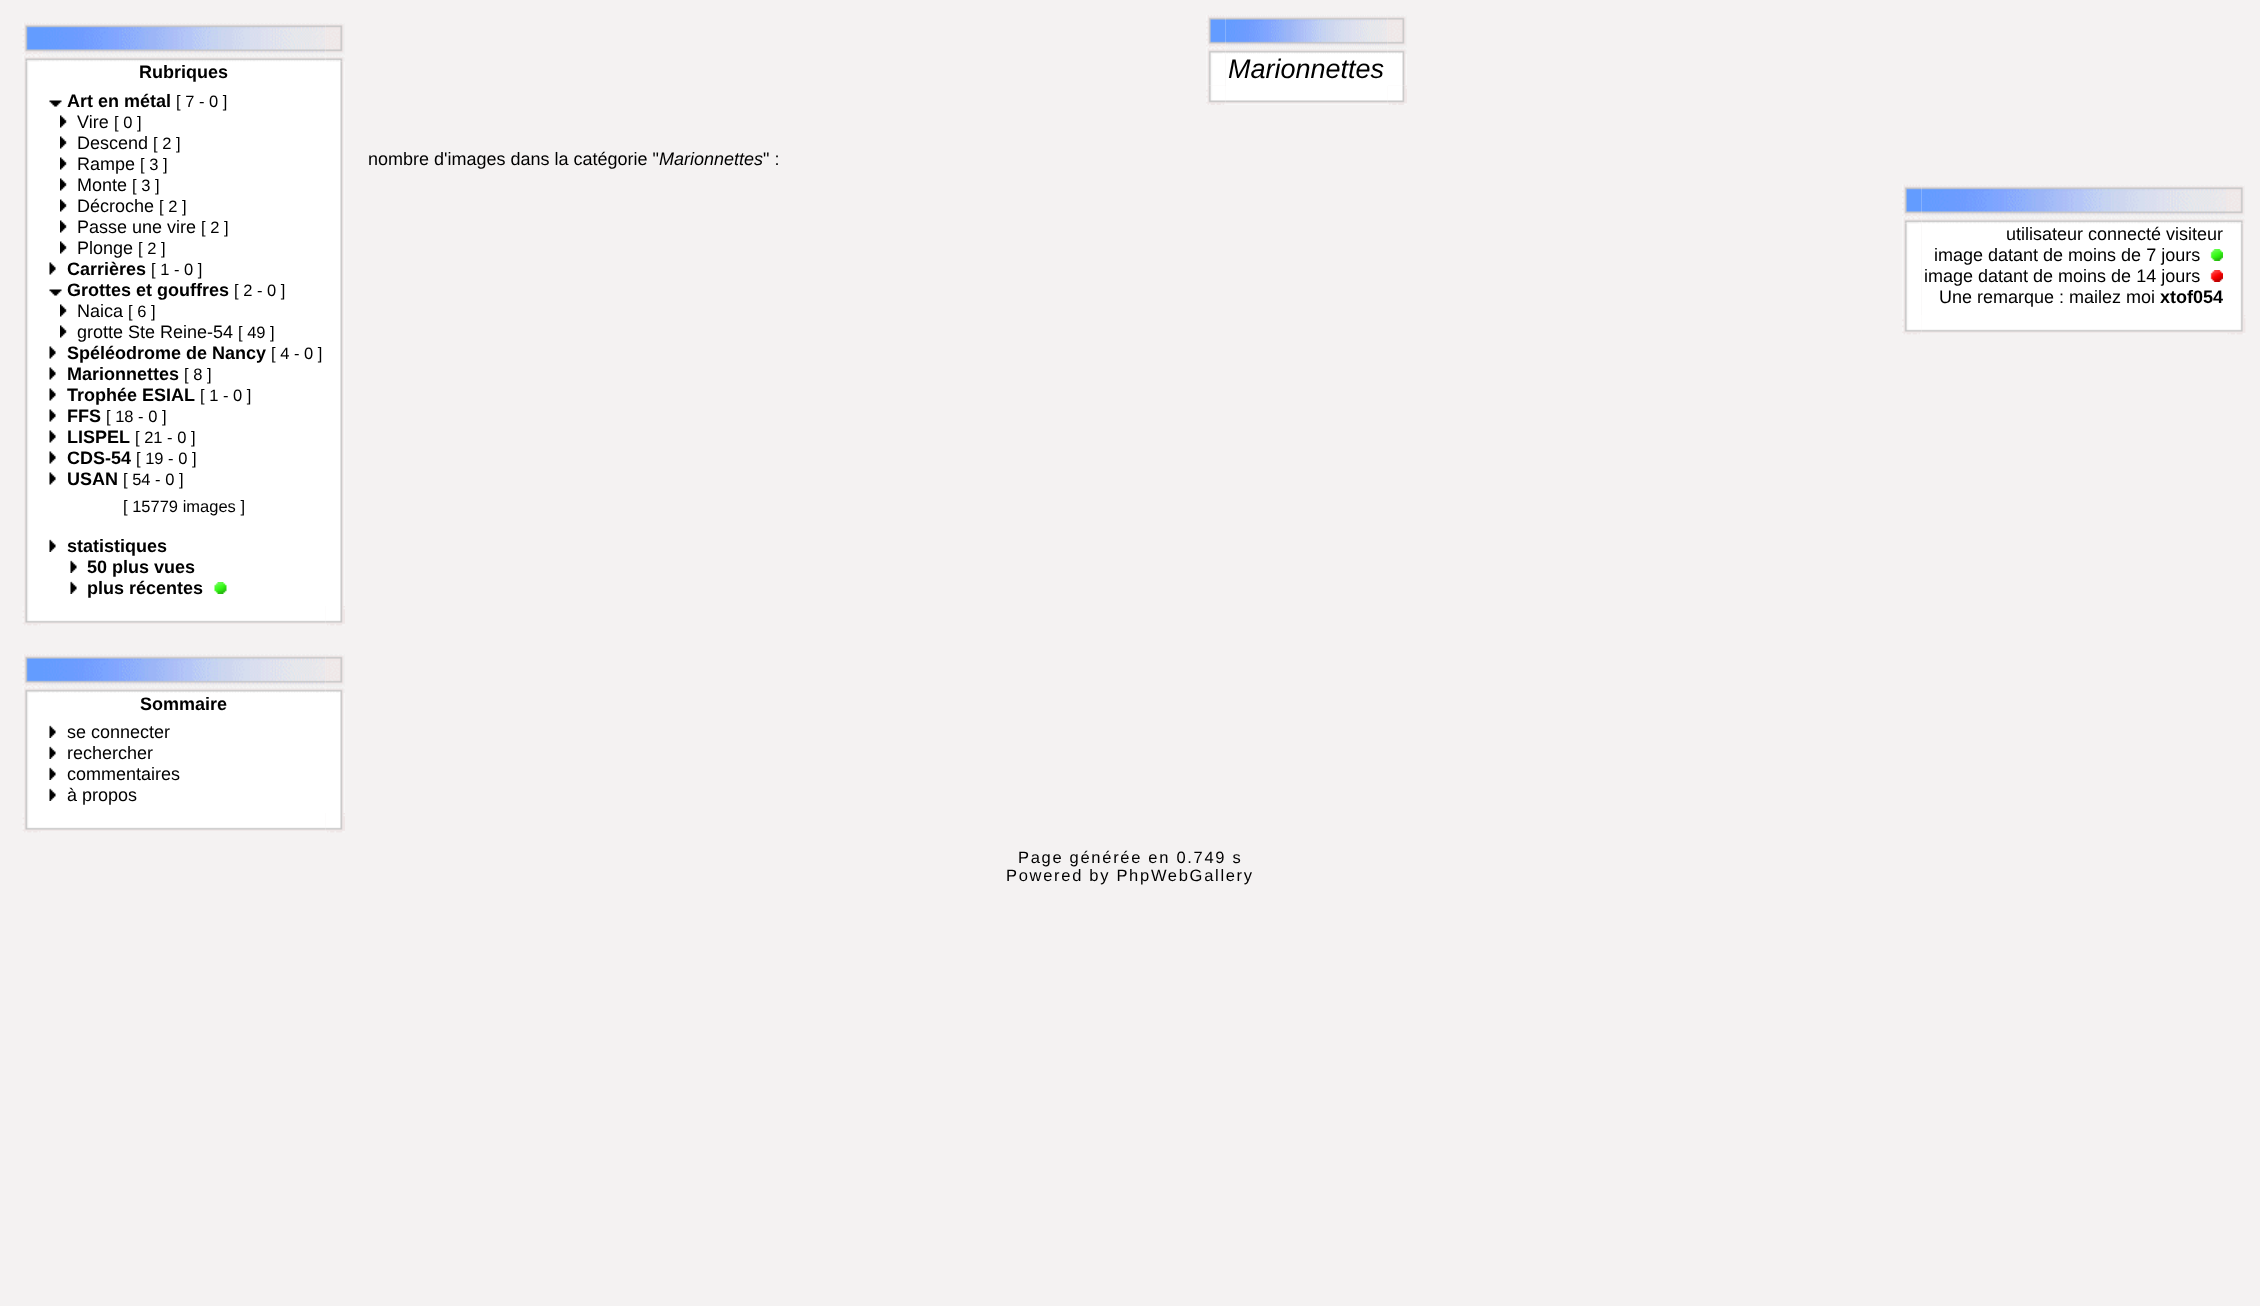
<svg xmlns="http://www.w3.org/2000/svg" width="2260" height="1306">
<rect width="100%" height="100%" fill="#f4f2f2"/>
<image x="24" y="61" width="18" height="545" href="media/4.png"/>
<image x="22" y="22" width="20" height="40" href="media/1.png"/>
<rect x="42" y="61" width="284" height="545" fill="#fff"/>
<image x="42" y="23" width="284" height="39" href="media/2.png"/>
<image x="326" y="61" width="19" height="545" href="media/10.png"/>
<image x="325" y="23" width="20" height="39" href="media/3.png"/>
<text x="139" y="78" style="font-family:Liberation Sans;font-size:18px;font-weight:bold;fill:#000">Rubriques</text>
<image x="49" y="100" width="13" height="7" href="media/5.png"/>
<text x="67" y="107" style="font-family:Liberation Sans;font-size:18px;font-weight:bold;fill:#000">Art en métal</text>
<text x="176" y="107" style="font-family:Liberation Sans;font-size:16.5px;fill:#000">[ 7 - 0 ]</text>
<image x="60" y="115" width="7" height="13" href="media/6.png"/>
<text x="77" y="128" style="font-family:Liberation Sans;font-size:18px;fill:#000">Vire</text>
<text x="114" y="128" style="font-family:Liberation Sans;font-size:16.5px;fill:#000">[ 0 ]</text>
<image x="60" y="136" width="7" height="13" href="media/6.png"/>
<text x="77" y="149" style="font-family:Liberation Sans;font-size:18px;fill:#000">Descend</text>
<text x="153" y="149" style="font-family:Liberation Sans;font-size:16.5px;fill:#000">[ 2 ]</text>
<image x="60" y="157" width="7" height="13" href="media/6.png"/>
<text x="77" y="170" style="font-family:Liberation Sans;font-size:18px;fill:#000">Rampe</text>
<text x="140" y="170" style="font-family:Liberation Sans;font-size:16.5px;fill:#000">[ 3 ]</text>
<image x="60" y="178" width="7" height="13" href="media/6.png"/>
<text x="77" y="191" style="font-family:Liberation Sans;font-size:18px;fill:#000">Monte</text>
<text x="132" y="191" style="font-family:Liberation Sans;font-size:16.5px;fill:#000">[ 3 ]</text>
<image x="60" y="199" width="7" height="13" href="media/6.png"/>
<text x="77" y="212" style="font-family:Liberation Sans;font-size:18px;fill:#000">Décroche</text>
<text x="159" y="212" style="font-family:Liberation Sans;font-size:16.5px;fill:#000">[ 2 ]</text>
<image x="60" y="220" width="7" height="13" href="media/6.png"/>
<text x="77" y="233" style="font-family:Liberation Sans;font-size:18px;fill:#000">Passe une vire</text>
<text x="201" y="233" style="font-family:Liberation Sans;font-size:16.5px;fill:#000">[ 2 ]</text>
<image x="60" y="241" width="7" height="13" href="media/6.png"/>
<text x="77" y="254" style="font-family:Liberation Sans;font-size:18px;fill:#000">Plonge</text>
<text x="138" y="254" style="font-family:Liberation Sans;font-size:16.5px;fill:#000">[ 2 ]</text>
<image x="49" y="262" width="7" height="13" href="media/7.png"/>
<text x="67" y="275" style="font-family:Liberation Sans;font-size:18px;font-weight:bold;fill:#000">Carrières</text>
<text x="151" y="275" style="font-family:Liberation Sans;font-size:16.5px;fill:#000">[ 1 - 0 ]</text>
<image x="49" y="289" width="13" height="7" href="media/5.png"/>
<text x="67" y="296" style="font-family:Liberation Sans;font-size:18px;font-weight:bold;fill:#000">Grottes et gouffres</text>
<text x="234" y="296" style="font-family:Liberation Sans;font-size:16.5px;fill:#000">[ 2 - 0 ]</text>
<image x="60" y="304" width="7" height="13" href="media/6.png"/>
<text x="77" y="317" style="font-family:Liberation Sans;font-size:18px;fill:#000">Naica</text>
<text x="128" y="317" style="font-family:Liberation Sans;font-size:16.5px;fill:#000">[ 6 ]</text>
<image x="60" y="325" width="7" height="13" href="media/6.png"/>
<text x="77" y="338" style="font-family:Liberation Sans;font-size:18px;fill:#000">grotte Ste Reine-54</text>
<text x="238" y="338" style="font-family:Liberation Sans;font-size:16.5px;fill:#000">[ 49 ]</text>
<image x="49" y="346" width="7" height="13" href="media/7.png"/>
<text x="67" y="359" style="font-family:Liberation Sans;font-size:18px;font-weight:bold;fill:#000">Spéléodrome de Nancy</text>
<text x="271" y="359" style="font-family:Liberation Sans;font-size:16.5px;fill:#000">[ 4 - 0 ]</text>
<image x="49" y="367" width="7" height="13" href="media/7.png"/>
<text x="67" y="380" style="font-family:Liberation Sans;font-size:18px;font-weight:bold;fill:#000">Marionnettes</text>
<text x="184" y="380" style="font-family:Liberation Sans;font-size:16.5px;fill:#000">[ 8 ]</text>
<image x="49" y="388" width="7" height="13" href="media/7.png"/>
<text x="67" y="401" style="font-family:Liberation Sans;font-size:18px;font-weight:bold;fill:#000">Trophée ESIAL</text>
<text x="200" y="401" style="font-family:Liberation Sans;font-size:16.5px;fill:#000">[ 1 - 0 ]</text>
<image x="49" y="409" width="7" height="13" href="media/7.png"/>
<text x="67" y="422" style="font-family:Liberation Sans;font-size:18px;font-weight:bold;fill:#000">FFS</text>
<text x="106" y="422" style="font-family:Liberation Sans;font-size:16.5px;fill:#000">[ 18 - 0 ]</text>
<image x="49" y="430" width="7" height="13" href="media/7.png"/>
<text x="67" y="443" style="font-family:Liberation Sans;font-size:18px;font-weight:bold;fill:#000">LISPEL</text>
<text x="135" y="443" style="font-family:Liberation Sans;font-size:16.5px;fill:#000">[ 21 - 0 ]</text>
<image x="49" y="451" width="7" height="13" href="media/7.png"/>
<text x="67" y="464" style="font-family:Liberation Sans;font-size:18px;font-weight:bold;fill:#000">CDS-54</text>
<text x="136" y="464" style="font-family:Liberation Sans;font-size:16.5px;fill:#000">[ 19 - 0 ]</text>
<image x="49" y="472" width="7" height="13" href="media/7.png"/>
<text x="67" y="485" style="font-family:Liberation Sans;font-size:18px;font-weight:bold;fill:#000">USAN</text>
<text x="123" y="485" style="font-family:Liberation Sans;font-size:16.5px;fill:#000">[ 54 - 0 ]</text>
<text x="123" y="512" style="font-family:Liberation Sans;font-size:16.5px;fill:#000">[ 15779 images ]</text>
<image x="49" y="539" width="7" height="13" href="media/8.png"/>
<text x="67" y="552" style="font-family:Liberation Sans;font-size:18px;font-weight:bold;fill:#000">statistiques</text>
<image x="70" y="560" width="7" height="13" href="media/8.png"/>
<text x="87" y="573" style="font-family:Liberation Sans;font-size:18px;font-weight:bold;fill:#000">50 plus vues</text>
<image x="70" y="581" width="7" height="13" href="media/8.png"/>
<text x="87" y="594" style="font-family:Liberation Sans;font-size:18px;font-weight:bold;fill:#000">plus récentes</text>
<image x="214" y="582" width="13" height="12" href="media/9.png"/>
<image x="22" y="606" width="20" height="20" href="media/11.png"/>
<image x="42" y="606" width="284" height="18" href="media/12.png"/>
<image x="325" y="606" width="20" height="20" href="media/13.png"/>
<image x="22" y="654" width="20" height="39" href="media/14.png"/>
<image x="42" y="654" width="284" height="39" href="media/15.png"/>
<image x="325" y="654" width="20" height="39" href="media/16.png"/>
<image x="24" y="693" width="18" height="120" href="media/17.png"/>
<rect x="42" y="693" width="284" height="120" fill="#fff"/>
<text x="140" y="710" style="font-family:Liberation Sans;font-size:18px;font-weight:bold;fill:#000">Sommaire</text>
<image x="49" y="725" width="7" height="13" href="media/8.png"/>
<text x="67" y="738" style="font-family:Liberation Sans;font-size:18px;fill:#000">se connecter</text>
<image x="49" y="746" width="7" height="13" href="media/8.png"/>
<text x="67" y="759" style="font-family:Liberation Sans;font-size:18px;fill:#000">rechercher</text>
<image x="49" y="767" width="7" height="13" href="media/8.png"/>
<text x="67" y="780" style="font-family:Liberation Sans;font-size:18px;fill:#000">commentaires</text>
<image x="49" y="788" width="7" height="13" href="media/8.png"/>
<text x="67" y="801" style="font-family:Liberation Sans;font-size:18px;fill:#000">à propos</text>
<image x="326" y="693" width="19" height="120" href="media/18.png"/>
<image x="22" y="813" width="20" height="20" href="media/11.png"/>
<image x="42" y="813" width="284" height="18" href="media/12.png"/>
<image x="325" y="813" width="20" height="20" href="media/13.png"/>
<image x="1206" y="15" width="20" height="39" href="media/19.png"/>
<image x="1225" y="15" width="163" height="39" href="media/20.png"/>
<image x="1387" y="15" width="20" height="39" href="media/21.png"/>
<image x="1206" y="54" width="20" height="32" href="media/22.png"/>
<rect x="1226" y="54" width="162" height="32" fill="#fff"/>
<text x="1228" y="78" style="font-family:Liberation Sans;font-size:27px;font-style:italic;fill:#000">Marionnettes</text>
<image x="1388" y="54" width="19" height="32" href="media/23.png"/>
<image x="1206" y="85" width="20" height="20" href="media/24.png"/>
<image x="1225" y="86" width="163" height="19" href="media/25.png"/>
<image x="1387" y="85" width="20" height="20" href="media/26.png"/>
<text x="368" y="165" style="font-family:Liberation Sans;font-size:18px;fill:#000">nombre d'images dans la catégorie "</text>
<text x="659" y="165" style="font-family:Liberation Sans;font-size:18px;font-style:italic;fill:#000">Marionnettes</text>
<text x="763" y="165" style="font-family:Liberation Sans;font-size:18px;fill:#000">" :</text>
<image x="1902" y="223" width="20" height="92" href="media/30.png"/>
<image x="1902" y="184" width="20" height="40" href="media/27.png"/>
<rect x="1922" y="223" width="304" height="92" fill="#fff"/>
<image x="1921" y="185" width="305" height="39" href="media/28.png"/>
<image x="2226" y="223" width="18" height="92" href="media/33.png"/>
<image x="2226" y="185" width="19" height="39" href="media/29.png"/>
<text x="2006" y="240" style="font-family:Liberation Sans;font-size:18px;fill:#000">utilisateur connecté visiteur</text>
<text x="1934" y="261" style="font-family:Liberation Sans;font-size:18px;fill:#000">image datant de moins de 7 jours</text>
<image x="2210" y="249" width="13" height="12" href="media/31.png"/>
<text x="1924" y="282" style="font-family:Liberation Sans;font-size:18px;fill:#000">image datant de moins de 14 jours</text>
<image x="2210" y="270" width="13" height="12" href="media/32.png"/>
<text x="1939" y="303" style="font-family:Liberation Sans;font-size:18px;fill:#000">Une remarque : mailez moi</text>
<text x="2160" y="303" style="font-family:Liberation Sans;font-size:18px;font-weight:bold;fill:#000">xtof054</text>
<image x="1902" y="315" width="20" height="20" href="media/34.png"/>
<image x="1921" y="315" width="305" height="18" href="media/35.png"/>
<image x="2226" y="315" width="20" height="20" href="media/36.png"/>
<text x="1018" y="863" style="font-family:Liberation Sans;font-size:16.5px;letter-spacing:1.7px;fill:#000">Page générée en 0.749 s</text>
<text x="1006" y="881" style="font-family:Liberation Sans;font-size:16.5px;letter-spacing:1.7px;fill:#000">Powered by PhpWebGallery</text>
</svg>
